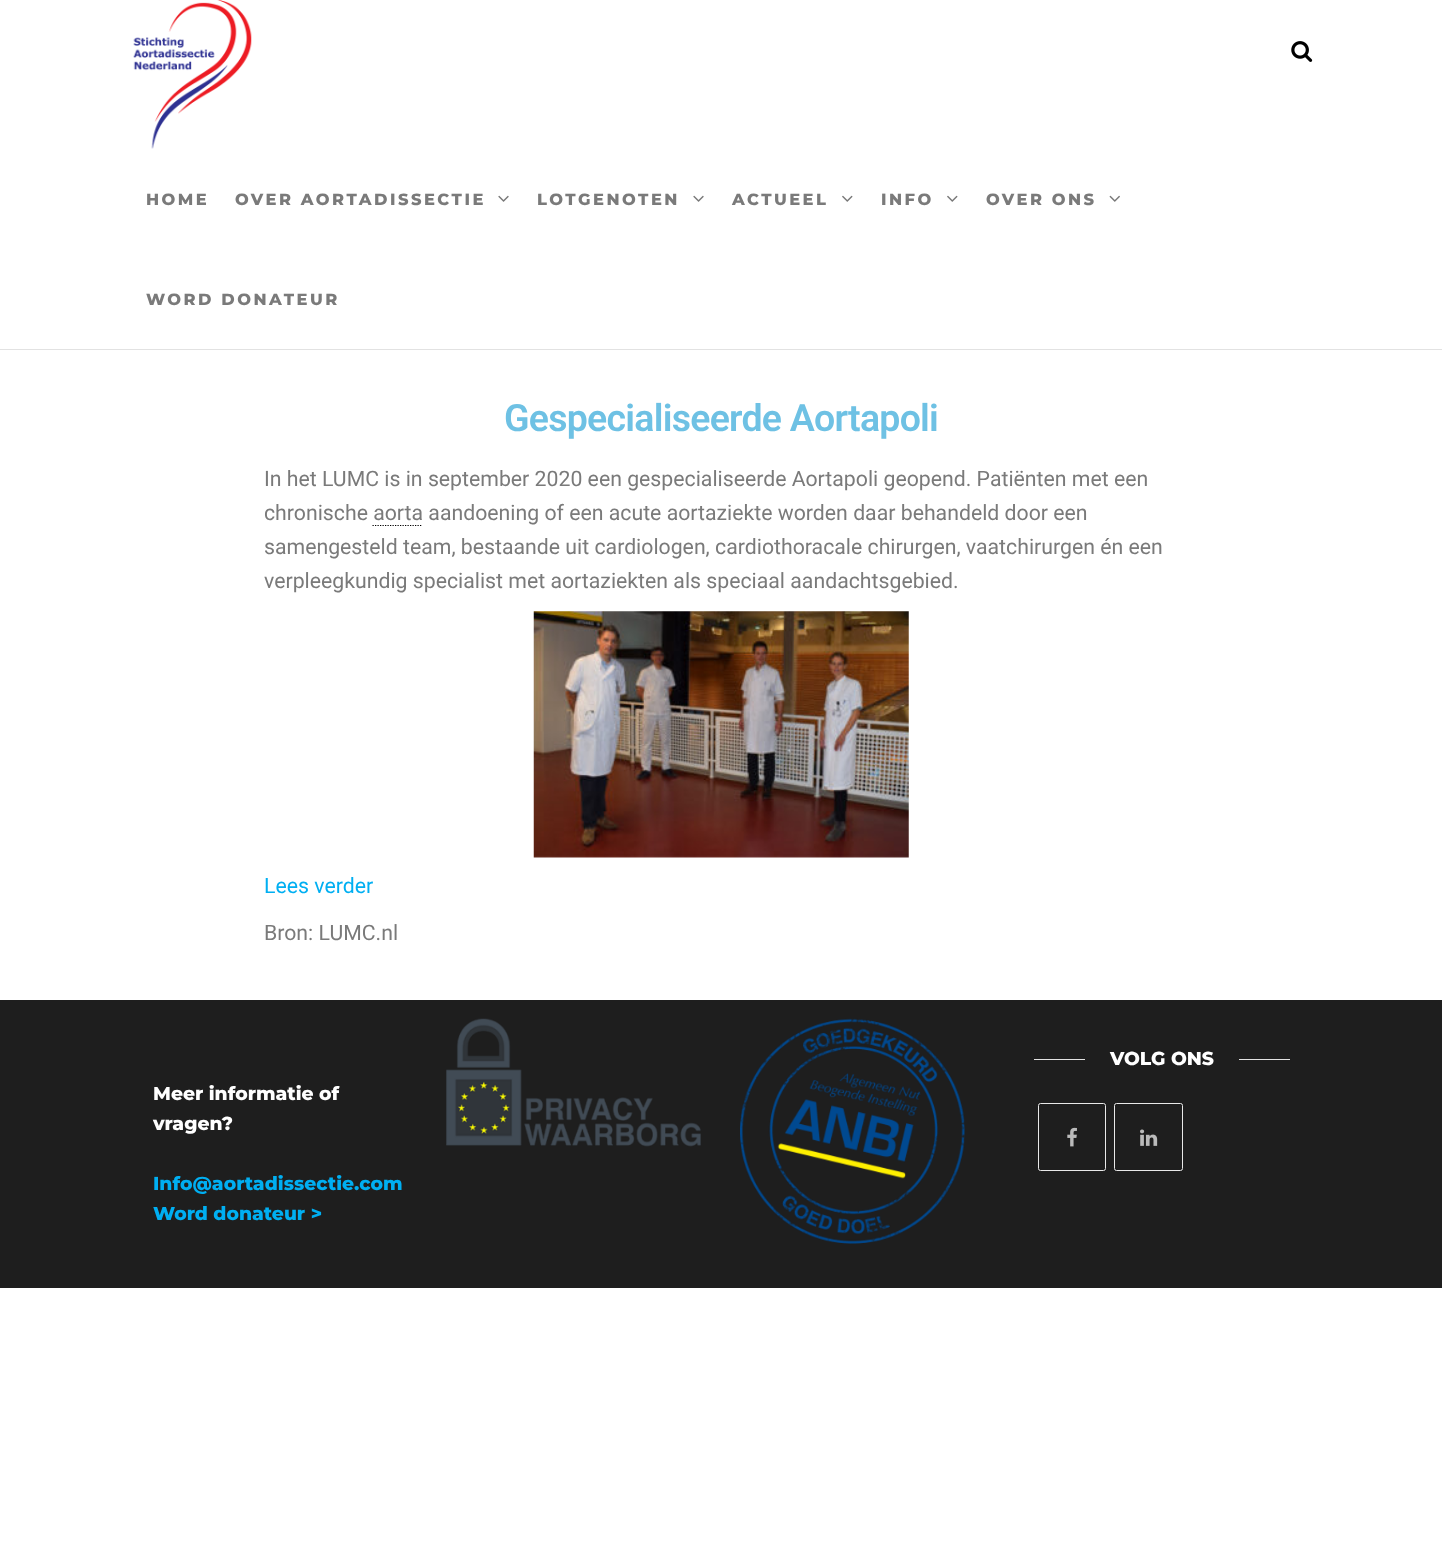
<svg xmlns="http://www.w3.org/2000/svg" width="1442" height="1556">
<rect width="100%" height="100%" fill="#fff"/>
<rect y="349" width="1442" height="1" fill="#e2e2e2"/>
<image x="133" y="0" width="119" height="149" href="media/1.png"/>
<image x="1291" y="41" width="22" height="21" href="media/2.png"/>
<text x="146" y="205" style="font-family:Montserrat;font-size:16.25px;font-weight:800;letter-spacing:2.5px;fill:#7a7a7a">HOME</text>
<text x="235" y="205" style="font-family:Montserrat;font-size:16.25px;font-weight:800;letter-spacing:2.5px;fill:#7a7a7a">OVER AORTADISSECTIE</text>
<image x="498" y="195" width="11" height="7" href="media/3.png"/>
<text x="537" y="205" style="font-family:Montserrat;font-size:16.25px;font-weight:800;letter-spacing:2.5px;fill:#7a7a7a">LOTGENOTEN</text>
<image x="693" y="195" width="11" height="7" href="media/3.png"/>
<text x="732" y="205" style="font-family:Montserrat;font-size:16.25px;font-weight:800;letter-spacing:2.5px;fill:#7a7a7a">ACTUEEL</text>
<image x="842" y="195" width="11" height="7" href="media/4.png"/>
<text x="881" y="205" style="font-family:Montserrat;font-size:16.25px;font-weight:800;letter-spacing:2.5px;fill:#7a7a7a">INFO</text>
<image x="947" y="195" width="11" height="7" href="media/4.png"/>
<text x="986" y="205" style="font-family:Montserrat;font-size:16.25px;font-weight:800;letter-spacing:2.5px;fill:#7a7a7a">OVER ONS</text>
<image x="1109" y="195" width="11" height="7" href="media/5.png"/>
<text x="146" y="305" style="font-family:Montserrat;font-size:16.25px;font-weight:800;letter-spacing:2.5px;fill:#7a7a7a">WORD DONATEUR</text>
<text x="504" y="431" style="font-family:Roboto;font-size:37.5px;font-weight:600;letter-spacing:-0.75px;fill:#6ec1e4">Gespecialiseerde Aortapoli</text>
<text x="264" y="486" style="font-family:Roboto;font-size:21.25px;fill:#7a7a7a">In het LUMC is in september 2020 een gespecialiseerde Aortapoli geopend. Patiënten met een</text>
<text x="264" y="520" style="font-family:Roboto;font-size:21.25px;fill:#7a7a7a">chronische aorta aandoening of een acute aortaziekte worden daar behandeld door een</text>
<path d="M372.5 525.5h50" fill="none" stroke="#000" stroke-width="1.2" stroke-dasharray="1.25 1.25"/>
<text x="264" y="554" style="font-family:Roboto;font-size:21.25px;fill:#7a7a7a">samengesteld team, bestaande uit cardiologen, cardiothoracale chirurgen, vaatchirurgen én een</text>
<text x="264" y="588" style="font-family:Roboto;font-size:21.25px;fill:#7a7a7a">verpleegkundig specialist met aortaziekten als speciaal aandachtsgebied.</text>
<image x="533" y="611" width="376" height="247" href="media/6.png"/>
<text x="264" y="893" style="font-family:Roboto;font-size:21.25px;fill:#00aff2">Lees verder</text>
<text x="264" y="940" style="font-family:Roboto;font-size:21.25px;fill:#7a7a7a">Bron: LUMC.nl</text>
<rect y="1000" width="1442" height="288" fill="#1e1e1e"/>
<image x="446" y="1018" width="255" height="129" href="media/7.png"/>
<image x="740" y="1018" width="225" height="226" href="media/8.png"/>
<rect x="1034" y="1059" width="256" height="1" fill="#e2e2e2"/>
<rect x="1085" y="1059" width="154" height="1" fill="#1e1e1e"/>
<text x="1110" y="1065" style="font-family:Montserrat;font-size:18.75px;font-weight:800;fill:#fff">VOLG ONS</text>
<rect x="1038.5" y="1103.5" width="67" height="67" rx="2" fill="none" stroke="#e9e9e9"/>
<image x="1067" y="1127" width="10" height="20" href="media/9.png"/>
<rect x="1114.5" y="1103.5" width="68" height="67" rx="2" fill="none" stroke="#e9e9e9"/>
<image x="1140" y="1129" width="18" height="17" href="media/10.png"/>
<text x="153" y="1100" style="font-family:Montserrat;font-size:18.75px;font-weight:800;fill:#fff">Meer informatie of</text>
<text x="153" y="1130" style="font-family:Montserrat;font-size:18.75px;font-weight:800;fill:#fff">vragen?</text>
<text x="153" y="1190" style="font-family:Montserrat;font-size:18.75px;font-weight:800;fill:#00aff2">Info@aortadissectie.com</text>
<text x="153" y="1220" style="font-family:Montserrat;font-size:18.75px;font-weight:800;fill:#00aff2">Word donateur &gt;</text>
</svg>
